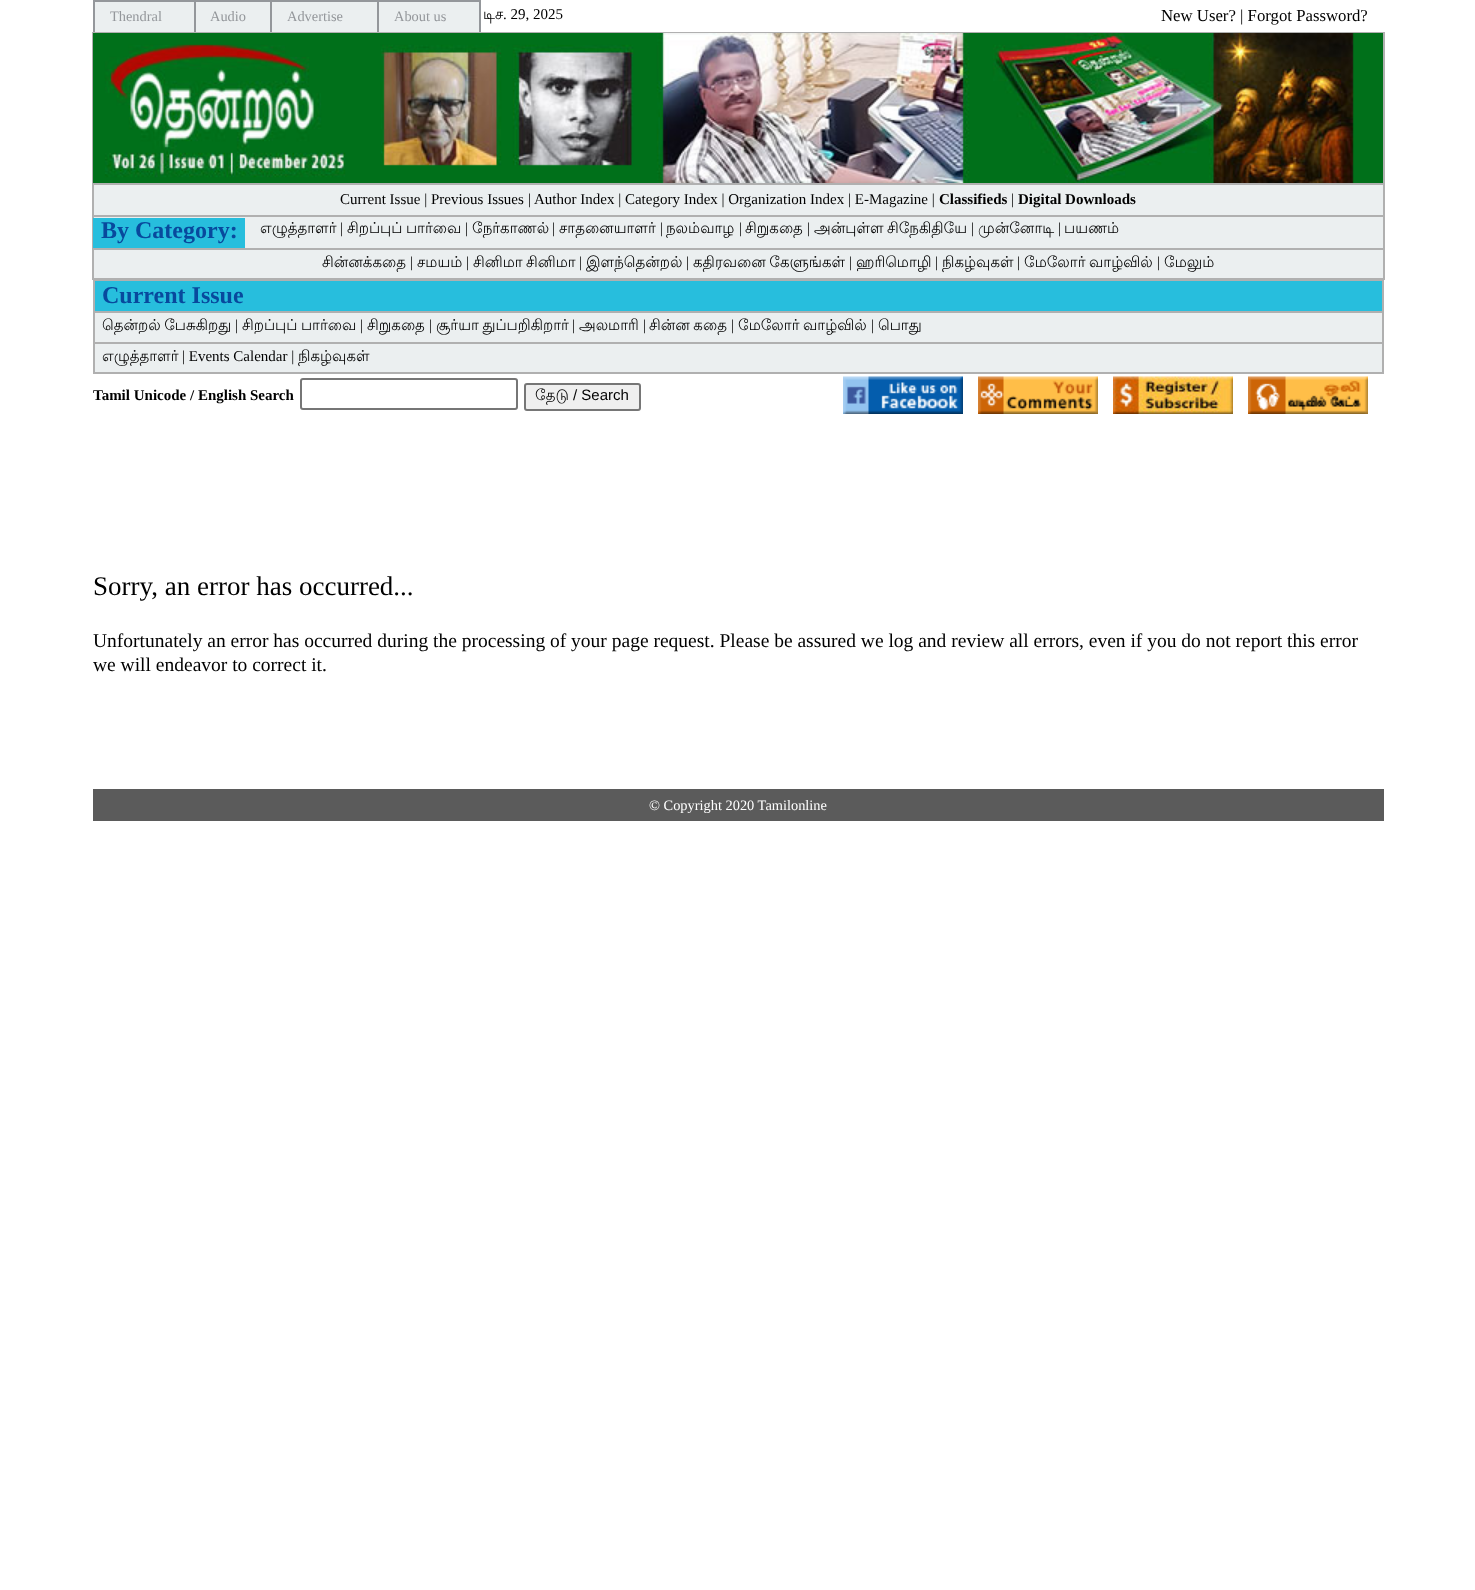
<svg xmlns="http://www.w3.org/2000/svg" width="1475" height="1590">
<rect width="100%" height="100%" fill="#fff"/>
<rect x="95" y="2" width="384" height="30" fill="#ebeff0"/>
<rect x="93" width="387" height="2" fill="#94979b"/>
<rect x="194" width="2" height="32" fill="#94979b"/>
<rect x="93" width="2" height="32" fill="#94979b"/>
<text x="110" y="21" style="font-family:Liberation Serif;font-size:14.4px;fill:#94979b">Thendral</text>
<rect x="270" width="2" height="32" fill="#94979b"/>
<text x="210" y="21" style="font-family:Liberation Serif;font-size:14.4px;fill:#94979b">Audio</text>
<rect x="377" width="2" height="32" fill="#94979b"/>
<text x="287" y="21" style="font-family:Liberation Serif;font-size:14.4px;fill:#94979b">Advertise</text>
<rect x="479" width="2" height="32" fill="#94979b"/>
<text x="394" y="21" style="font-family:Liberation Serif;font-size:14.4px;fill:#94979b">About us</text>
<text x="483" y="19" style="font-family:Lohit Tamil;font-size:15px;fill:#000">டிச</text>
<text x="503" y="19" style="font-family:Liberation Serif;font-size:15px;fill:#000">. 29, 2025</text>
<text x="1161" y="21" style="font-family:Liberation Serif;font-size:16.75px;fill:#000">New User? | Forgot Password?</text>
<rect x="94" y="185" width="1289" height="93" fill="#ebeff0"/>
<rect x="92" y="32" width="1293" height="1" fill="#b0b0b0"/>
<rect x="93" y="183" width="1292" height="2" fill="#b0b0b0"/>
<rect x="93" y="215" width="1292" height="2" fill="#b0b0b0"/>
<rect x="93" y="248" width="1292" height="2" fill="#b0b0b0"/>
<rect x="1383" y="32" width="2" height="247" fill="#b0b0b0"/>
<rect x="92" y="278" width="1293" height="2" fill="#b0b0b0"/>
<rect x="92" y="32" width="2" height="247" fill="#b0b0b0"/>
<image x="93" y="33" width="1290" height="150" href="media/1.png"/>
<text x="340" y="204" style="font-family:Liberation Serif;font-size:15px;fill:#000">Current Issue | Previous Issues</text>
<text x="528" y="204" style="font-family:Liberation Serif;font-size:15px;fill:#000">|</text>
<text x="534" y="204" style="font-family:Liberation Serif;font-size:15px;fill:#000">Author Index | Category Index | Organization Index | E-Magazine |</text>
<text x="939" y="204" style="font-family:Liberation Serif;font-size:15px;font-weight:bold;fill:#000">Classifieds</text>
<text x="1011" y="204" style="font-family:Liberation Serif;font-size:15px;fill:#000">|</text>
<text x="1018" y="204" style="font-family:Liberation Serif;font-size:15px;font-weight:bold;fill:#000">Digital Downloads</text>
<rect x="93" y="218" width="152" height="30" fill="#27bedd"/>
<text x="101" y="238" style="font-family:Liberation Serif;font-size:24px;font-weight:bold;fill:#08499d">By Category:</text>
<text x="260" y="233" style="font-family:Lohit Tamil;font-size:15px;fill:#000">எழுத்தாளர்</text>
<text x="340" y="233" style="font-family:Liberation Serif;font-size:15px;fill:#000">|</text>
<text x="347" y="233" word-spacing="-1" style="font-family:Lohit Tamil;font-size:15px;fill:#000">சிறப்புப் பார்வை</text>
<text x="465" y="233" style="font-family:Liberation Serif;font-size:15px;fill:#000">|</text>
<text x="472" y="233" style="font-family:Lohit Tamil;font-size:15px;fill:#000">நேர்காணல்</text>
<text x="552" y="233" style="font-family:Liberation Serif;font-size:15px;fill:#000">|</text>
<text x="559" y="233" style="font-family:Lohit Tamil;font-size:15px;fill:#000">சாதனையாளர்</text>
<text x="660" y="233" style="font-family:Liberation Serif;font-size:15px;fill:#000">|</text>
<text x="666" y="233" style="font-family:Lohit Tamil;font-size:15px;fill:#000">நலம்வாழ</text>
<text x="739" y="233" style="font-family:Liberation Serif;font-size:15px;fill:#000">|</text>
<text x="745" y="233" style="font-family:Lohit Tamil;font-size:15px;fill:#000">சிறுகதை</text>
<text x="807" y="233" style="font-family:Liberation Serif;font-size:15px;fill:#000">|</text>
<text x="814" y="233" word-spacing="-1" style="font-family:Lohit Tamil;font-size:15px;fill:#000">அன்புள்ள சிநேகிதியே</text>
<text x="971" y="233" style="font-family:Liberation Serif;font-size:15px;fill:#000">|</text>
<text x="978" y="233" style="font-family:Lohit Tamil;font-size:15px;fill:#000">முன்னோடி</text>
<text x="1058" y="233" style="font-family:Liberation Serif;font-size:15px;fill:#000">|</text>
<text x="1064" y="233" style="font-family:Lohit Tamil;font-size:15px;fill:#000">பயணம்</text>
<text x="322" y="267" style="font-family:Lohit Tamil;font-size:15px;fill:#000">சின்னக்கதை</text>
<text x="410" y="267" style="font-family:Liberation Serif;font-size:15px;fill:#000">|</text>
<text x="417" y="267" style="font-family:Lohit Tamil;font-size:15px;fill:#000">சமயம்</text>
<text x="466" y="267" style="font-family:Liberation Serif;font-size:15px;fill:#000">|</text>
<text x="473" y="267" word-spacing="-1" style="font-family:Lohit Tamil;font-size:15px;fill:#000">சினிமா சினிமா</text>
<text x="579" y="267" style="font-family:Liberation Serif;font-size:15px;fill:#000">|</text>
<text x="586" y="267" style="font-family:Lohit Tamil;font-size:15px;fill:#000">இளந்தென்றல்</text>
<text x="686" y="267" style="font-family:Liberation Serif;font-size:15px;fill:#000">|</text>
<text x="693" y="267" word-spacing="-1" style="font-family:Lohit Tamil;font-size:15px;fill:#000">கதிரவனை கேளுங்கள்</text>
<text x="849" y="267" style="font-family:Liberation Serif;font-size:15px;fill:#000">|</text>
<text x="856" y="267" style="font-family:Lohit Tamil;font-size:15px;fill:#000">ஹரிமொழி</text>
<text x="935" y="267" style="font-family:Liberation Serif;font-size:15px;fill:#000">|</text>
<text x="942" y="267" style="font-family:Lohit Tamil;font-size:15px;fill:#000">நிகழ்வுகள்</text>
<text x="1017" y="267" style="font-family:Liberation Serif;font-size:15px;fill:#000">|</text>
<text x="1024" y="267" word-spacing="-1" style="font-family:Lohit Tamil;font-size:15px;fill:#000">மேலோர் வாழ்வில்</text>
<text x="1157" y="267" style="font-family:Liberation Serif;font-size:15px;fill:#000">|</text>
<text x="1164" y="267" style="font-family:Lohit Tamil;font-size:15px;fill:#000">மேலும்</text>
<rect x="95" y="313" width="1287" height="59" fill="#ebeff0"/>
<rect x="93" y="280" width="1290" height="1" fill="#b0b0b0"/>
<rect x="95" y="311" width="1288" height="2" fill="#b0b0b0"/>
<rect x="95" y="342" width="1288" height="2" fill="#b0b0b0"/>
<rect x="1382" y="279" width="2" height="95" fill="#b0b0b0"/>
<rect x="93" y="372" width="1290" height="2" fill="#b0b0b0"/>
<rect x="93" y="279" width="2" height="95" fill="#b0b0b0"/>
<rect x="95" y="281" width="1287" height="30" fill="#27bedd"/>
<text x="102" y="303" style="font-family:Liberation Serif;font-size:24px;font-weight:bold;fill:#08499d">Current Issue</text>
<text x="102" y="330" word-spacing="-1" style="font-family:Lohit Tamil;font-size:15px;fill:#000">தென்றல் பேசுகிறது</text>
<text x="235" y="330" style="font-family:Liberation Serif;font-size:15px;fill:#000">|</text>
<text x="242" y="330" word-spacing="-1" style="font-family:Lohit Tamil;font-size:15px;fill:#000">சிறப்புப் பார்வை</text>
<text x="360" y="330" style="font-family:Liberation Serif;font-size:15px;fill:#000">|</text>
<text x="367" y="330" style="font-family:Lohit Tamil;font-size:15px;fill:#000">சிறுகதை</text>
<text x="429" y="330" style="font-family:Liberation Serif;font-size:15px;fill:#000">|</text>
<text x="436" y="330" word-spacing="-1" style="font-family:Lohit Tamil;font-size:15px;fill:#000">சூர்யா துப்பறிகிறார்</text>
<text x="572" y="330" style="font-family:Liberation Serif;font-size:15px;fill:#000">|</text>
<text x="579" y="330" style="font-family:Lohit Tamil;font-size:15px;fill:#000">அலமாரி</text>
<text x="643" y="330" style="font-family:Liberation Serif;font-size:15px;fill:#000">|</text>
<text x="649" y="330" word-spacing="-1" style="font-family:Lohit Tamil;font-size:15px;fill:#000">சின்ன கதை</text>
<text x="731" y="330" style="font-family:Liberation Serif;font-size:15px;fill:#000">|</text>
<text x="738" y="330" word-spacing="-1" style="font-family:Lohit Tamil;font-size:15px;fill:#000">மேலோர் வாழ்வில்</text>
<text x="871" y="330" style="font-family:Liberation Serif;font-size:15px;fill:#000">|</text>
<text x="878" y="330" style="font-family:Lohit Tamil;font-size:15px;fill:#000">பொது</text>
<text x="102" y="361" style="font-family:Lohit Tamil;font-size:15px;fill:#000">எழுத்தாளர்</text>
<text x="182" y="361" style="font-family:Liberation Serif;font-size:15px;fill:#000">| Events Calendar |</text>
<text x="298" y="361" style="font-family:Lohit Tamil;font-size:15px;fill:#000">நிகழ்வுகள்</text>
<text x="93" y="400" style="font-family:Liberation Serif;font-size:15px;font-weight:bold;fill:#000">Tamil Unicode / English Search</text>
<rect x="301" y="379" width="216" height="30" rx="2" fill="none" stroke="#767676" stroke-width="2"/>
<rect x="525" y="384" width="115" height="26" rx="2" fill="#efefef" stroke="#767676" stroke-width="2"/>
<text x="535" y="400" style="font-family:Lohit Tamil;font-size:15px;fill:#000">தேடு</text>
<text x="573" y="400" style="font-family:Liberation Sans;font-size:15px;fill:#000">/ Search</text>
<image x="843" y="376" width="120" height="38" href="media/2.png"/>
<image x="978" y="376" width="120" height="38" href="media/3.png"/>
<image x="1113" y="376" width="120" height="38" href="media/4.png"/>
<image x="1248" y="376" width="120" height="38" href="media/5.png"/>
<text x="93" y="595" style="font-family:Liberation Serif;font-size:27px;fill:#000">Sorry, an error has occurred...</text>
<text x="93" y="647" style="font-family:Liberation Serif;font-size:19.5px;fill:#000">Unfortunately an error has occurred during the processing of your page request. Please be assured we log and review all errors, even if you do not report this error</text>
<text x="93" y="671" style="font-family:Liberation Serif;font-size:19.5px;fill:#000">we will endeavor to correct it.</text>
<rect x="93" y="789" width="1291" height="32" fill="#5b5b5b"/>
<text x="649" y="810" style="font-family:Liberation Serif;font-size:14.4px;fill:#fff">© Copyright 2020 Tamilonline</text>
</svg>
